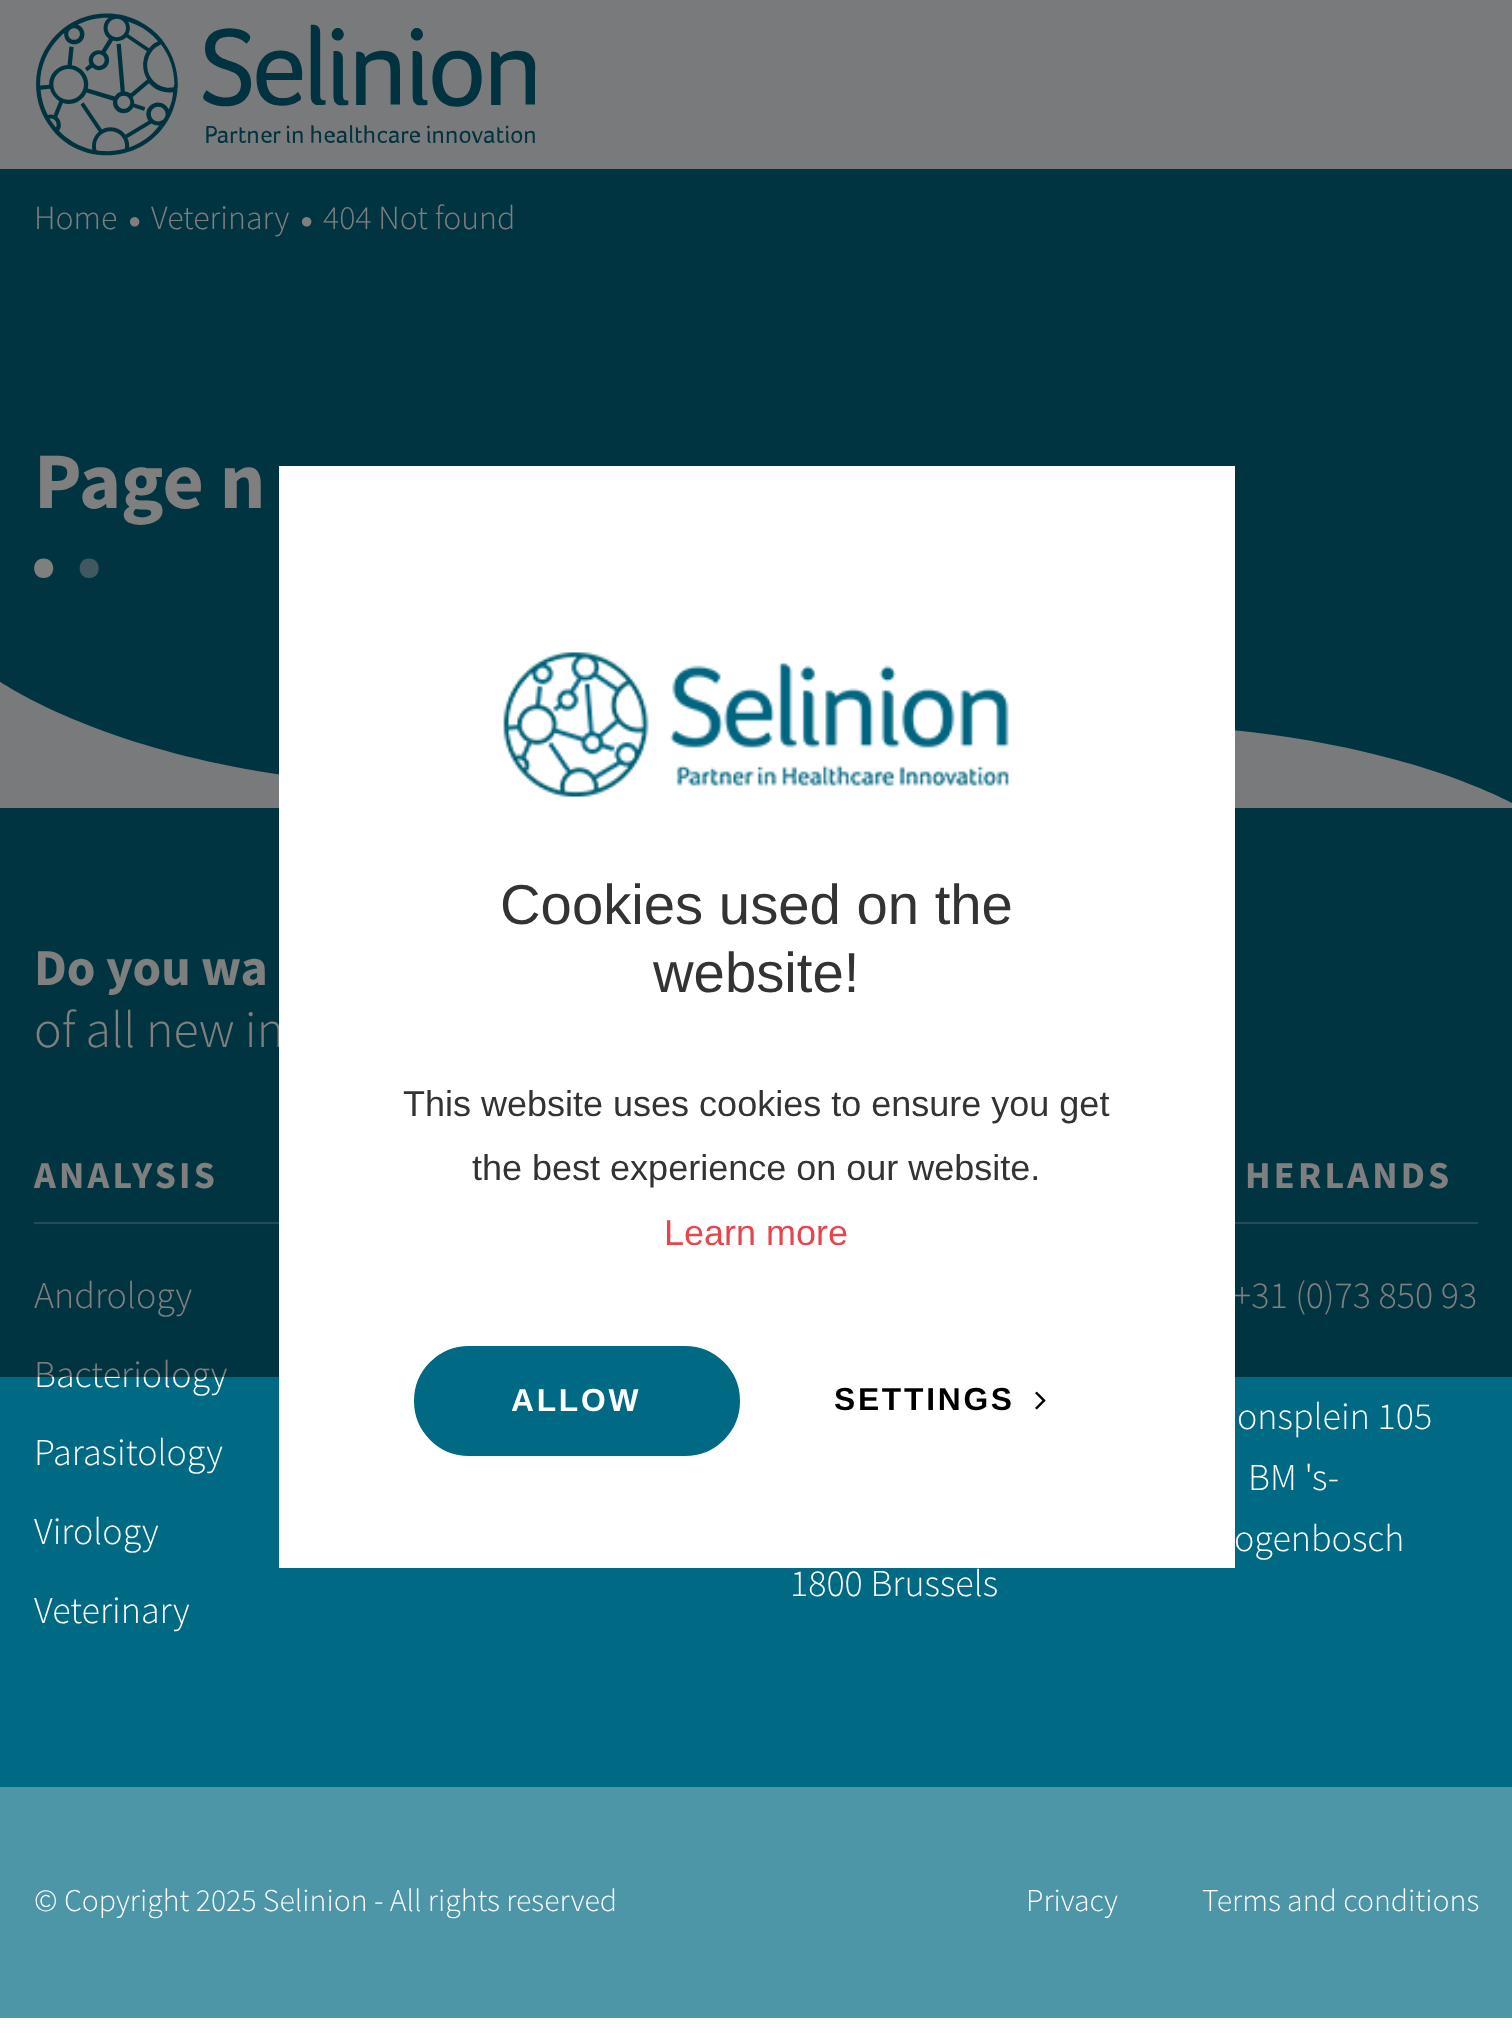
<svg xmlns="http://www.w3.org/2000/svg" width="1512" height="2033">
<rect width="100%" height="100%" fill="#fff"/>
<rect width="1512" height="169" fill="#f3f5f7"/>
<image x="36" y="13" width="500" height="143" href="media/1.png"/>
<rect y="169" width="1512" height="635" fill="#006983"/>
<text x="34" y="229" style="font-family:Mada;font-size:33.75px;font-weight:300;fill:#fff">Home</text>
<text x="128" y="228" style="font-family:Liberation Sans;font-size:22px;fill:#fff">●</text>
<text x="151" y="229" style="font-family:Mada;font-size:33.75px;font-weight:300;fill:#fff">Veterinary</text>
<text x="300" y="228" style="font-family:Liberation Sans;font-size:22px;fill:#fff">●</text>
<text x="323" y="229" style="font-family:Mada;font-size:33.75px;font-weight:300;fill:#fff">404 Not found</text>
<text x="34" y="508" style="font-family:Mada;font-size:80px;font-weight:bold;fill:#fff">Page n</text>
<path d="M43.5 578c13 0 13-19.5 0-19.5c-12.5 0-12.5 19.5 0 19.5" fill="#fff"/>
<path d="M89 578c13 0 13-19.5 0-19.5c-12.5 0-12.5 19.5 0 19.5" fill="#80b3c0"/>
<path d="M-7 808v-131c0 0 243 180 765 80c517-99 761 50 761 50v1z" fill="#f3f5f7"/>
<rect y="808" width="1512" height="979" fill="#006983"/>
<text x="34" y="985" style="font-family:Mada;font-size:51.75px;font-weight:bold;fill:#fff">Do you wa</text>
<text x="34" y="1047" style="font-family:Mada;font-size:51.75px;font-weight:300;fill:#fff">of all new in</text>
<rect x="34" y="1222" width="245" height="2" fill="#4d96a8"/>
<text x="34" y="1188" style="font-family:Mada;font-size:38px;font-weight:bold;letter-spacing:3.25px;fill:#fff">ANALYSIS</text>
<text x="34" y="1308" style="font-family:Mada;font-size:38px;font-weight:300;fill:#fff">Andrology</text>
<text x="34" y="1387" style="font-family:Mada;font-size:38px;font-weight:300;fill:#fff">Bacteriology</text>
<text x="34" y="1465" style="font-family:Mada;font-size:38px;font-weight:300;fill:#fff">Parasitology</text>
<text x="34" y="1544" style="font-family:Mada;font-size:38px;font-weight:300;fill:#fff">Virology</text>
<text x="34" y="1623" style="font-family:Mada;font-size:38px;font-weight:300;fill:#fff">Veterinary</text>
<rect x="1235" y="1222" width="243" height="2" fill="#4d96a8"/>
<text x="1245" y="1188" style="font-family:Mada;font-size:38px;font-weight:bold;letter-spacing:3.25px;fill:#fff">HERLANDS</text>
<text x="1233" y="1308" style="font-family:Mada;font-size:38px;font-weight:300;fill:#fff">+31 (0)73 850 93</text>
<text x="1237" y="1429" style="font-family:Mada;font-size:38px;font-weight:300;fill:#fff">onsplein 105</text>
<text x="1248" y="1490" style="font-family:Mada;font-size:38px;font-weight:300;fill:#fff">BM 's-</text>
<text x="1234" y="1551" style="font-family:Mada;font-size:38px;font-weight:300;fill:#fff">ogenbosch</text>
<text x="790" y="1596" style="font-family:Mada;font-size:38px;font-weight:300;fill:#fff">1800 Brussels</text>
<rect y="1787" width="1512" height="231" fill="#4d96a8"/>
<text x="34" y="1911" style="font-family:Mada;font-size:31.75px;font-weight:300;fill:#fff">© Copyright 2025 Selinion - All rights reserved</text>
<text x="1026" y="1911" style="font-family:Mada;font-size:31.75px;font-weight:300;fill:#fff">Privacy</text>
<text x="1202" y="1911" style="font-family:Mada;font-size:31.75px;font-weight:300;fill:#fff">Terms and conditions</text>
<rect width="1512" height="1377" fill="#00000080"/>
<rect x="279" y="466" width="956" height="1102" fill="#fff"/>
<image x="503" y="652" width="506" height="146" href="media/2.png"/>
<text x="500" y="924" style="font-family:Liberation Sans;font-size:56.25px;fill:#333">Cookies used on the</text>
<text x="653" y="992" style="font-family:Liberation Sans;font-size:56.25px;fill:#333">website!</text>
<text x="403" y="1116" style="font-family:Liberation Sans;font-size:36px;fill:#333">This website uses cookies to ensure you get</text>
<text x="472" y="1180" style="font-family:Liberation Sans;font-size:36px;fill:#333">the best experience on our website.</text>
<text x="664" y="1245" style="font-family:Liberation Sans;font-size:36px;fill:#e7454a">Learn more</text>
<rect x="415" y="1347" width="324" height="108" rx="54" fill="#006983" stroke="#006983" stroke-width="2"/>
<text x="511" y="1411" style="font-family:Liberation Sans;font-size:31.75px;font-weight:bold;letter-spacing:2.75px;fill:#fff">ALLOW</text>
<text x="834" y="1410" style="font-family:Liberation Sans;font-size:31.75px;font-weight:bold;letter-spacing:2.75px;fill:#000">SETTINGS</text>
<image x="1035" y="1391" width="11" height="19" href="media/3.png"/>
</svg>
